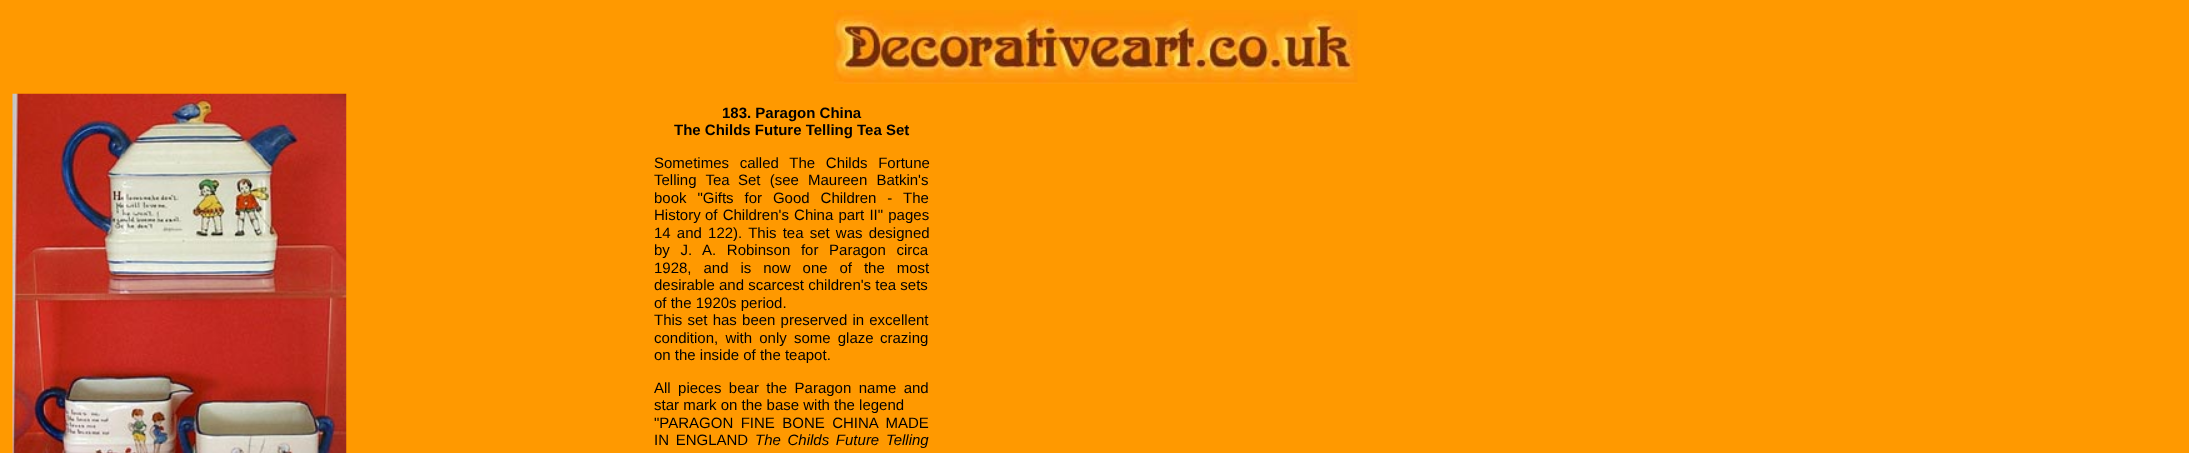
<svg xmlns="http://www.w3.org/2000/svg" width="2189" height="453">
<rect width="100%" height="100%" fill="#f90"/>
<image x="833" y="10" width="525" height="74" href="media/1.png"/>
<image x="12" y="93" width="335" height="360" href="media/2.png"/>
<text x="722" y="118" style="font-family:Liberation Sans;font-size:15px;font-weight:bold;fill:#000">183. Paragon China</text>
<text x="674" y="135" style="font-family:Liberation Sans;font-size:15px;font-weight:bold;fill:#000">The Childs Future Telling Tea Set</text>
<text x="654" y="168" word-spacing="6.5" style="font-family:Liberation Sans;font-size:15px;fill:#000">Sometimes called The Childs Fortune</text>
<text x="654" y="185" word-spacing="5" style="font-family:Liberation Sans;font-size:15px;fill:#000">Telling Tea</text>
<text x="738" y="185" word-spacing="5" style="font-family:Liberation Sans;font-size:15px;fill:#000">Set (see Maureen Batkin's</text>
<text x="654" y="203" word-spacing="6.75" style="font-family:Liberation Sans;font-size:15px;fill:#000">book "Gifts for Good Children - The</text>
<text x="654" y="220" style="font-family:Liberation Sans;font-size:15px;fill:#000">History</text>
<text x="705" y="220" word-spacing="1" style="font-family:Liberation Sans;font-size:15px;fill:#000">of Children's China part II" pages</text>
<text x="654" y="238" word-spacing="2" style="font-family:Liberation Sans;font-size:15px;fill:#000">14 and 122). This tea set was designed</text>
<text x="654" y="255" word-spacing="6.5" style="font-family:Liberation Sans;font-size:15px;fill:#000">by J. A. Robinson for Paragon circa</text>
<text x="654" y="273" word-spacing="7.75" style="font-family:Liberation Sans;font-size:15px;fill:#000">1928, and is now one of the most</text>
<text x="654" y="290" style="font-family:Liberation Sans;font-size:15px;fill:#000">desirable</text>
<text x="719" y="290" style="font-family:Liberation Sans;font-size:15px;fill:#000">and scarcest children's tea sets</text>
<text x="654" y="308" style="font-family:Liberation Sans;font-size:15px;fill:#000">of the 1920s period.</text>
<text x="654" y="325" word-spacing="1" style="font-family:Liberation Sans;font-size:15px;fill:#000">This set has been preserved in excellent</text>
<text x="654" y="343" word-spacing="3" style="font-family:Liberation Sans;font-size:15px;fill:#000">condition, with only some glaze</text>
<text x="880" y="343" style="font-family:Liberation Sans;font-size:15px;fill:#000">crazing</text>
<text x="654" y="360" style="font-family:Liberation Sans;font-size:15px;fill:#000">on the inside of the teapot.</text>
<text x="654" y="393" word-spacing="3.25" style="font-family:Liberation Sans;font-size:15px;fill:#000">All pieces bear the Paragon name and</text>
<text x="654" y="410" style="font-family:Liberation Sans;font-size:15px;fill:#000">star mark on the base with the legend</text>
<text x="654" y="428" word-spacing="3.25" style="font-family:Liberation Sans;font-size:15px;fill:#000">"PARAGON FINE BONE CHINA MADE</text>
<text x="654" y="445" word-spacing="2.5" style="font-family:Liberation Sans;font-size:15px;fill:#000">IN ENGLAND</text>
<text x="755" y="445" word-spacing="2.5" style="font-family:Liberation Sans;font-size:15px;font-style:italic;fill:#000">The Childs Future Telling</text>
</svg>
